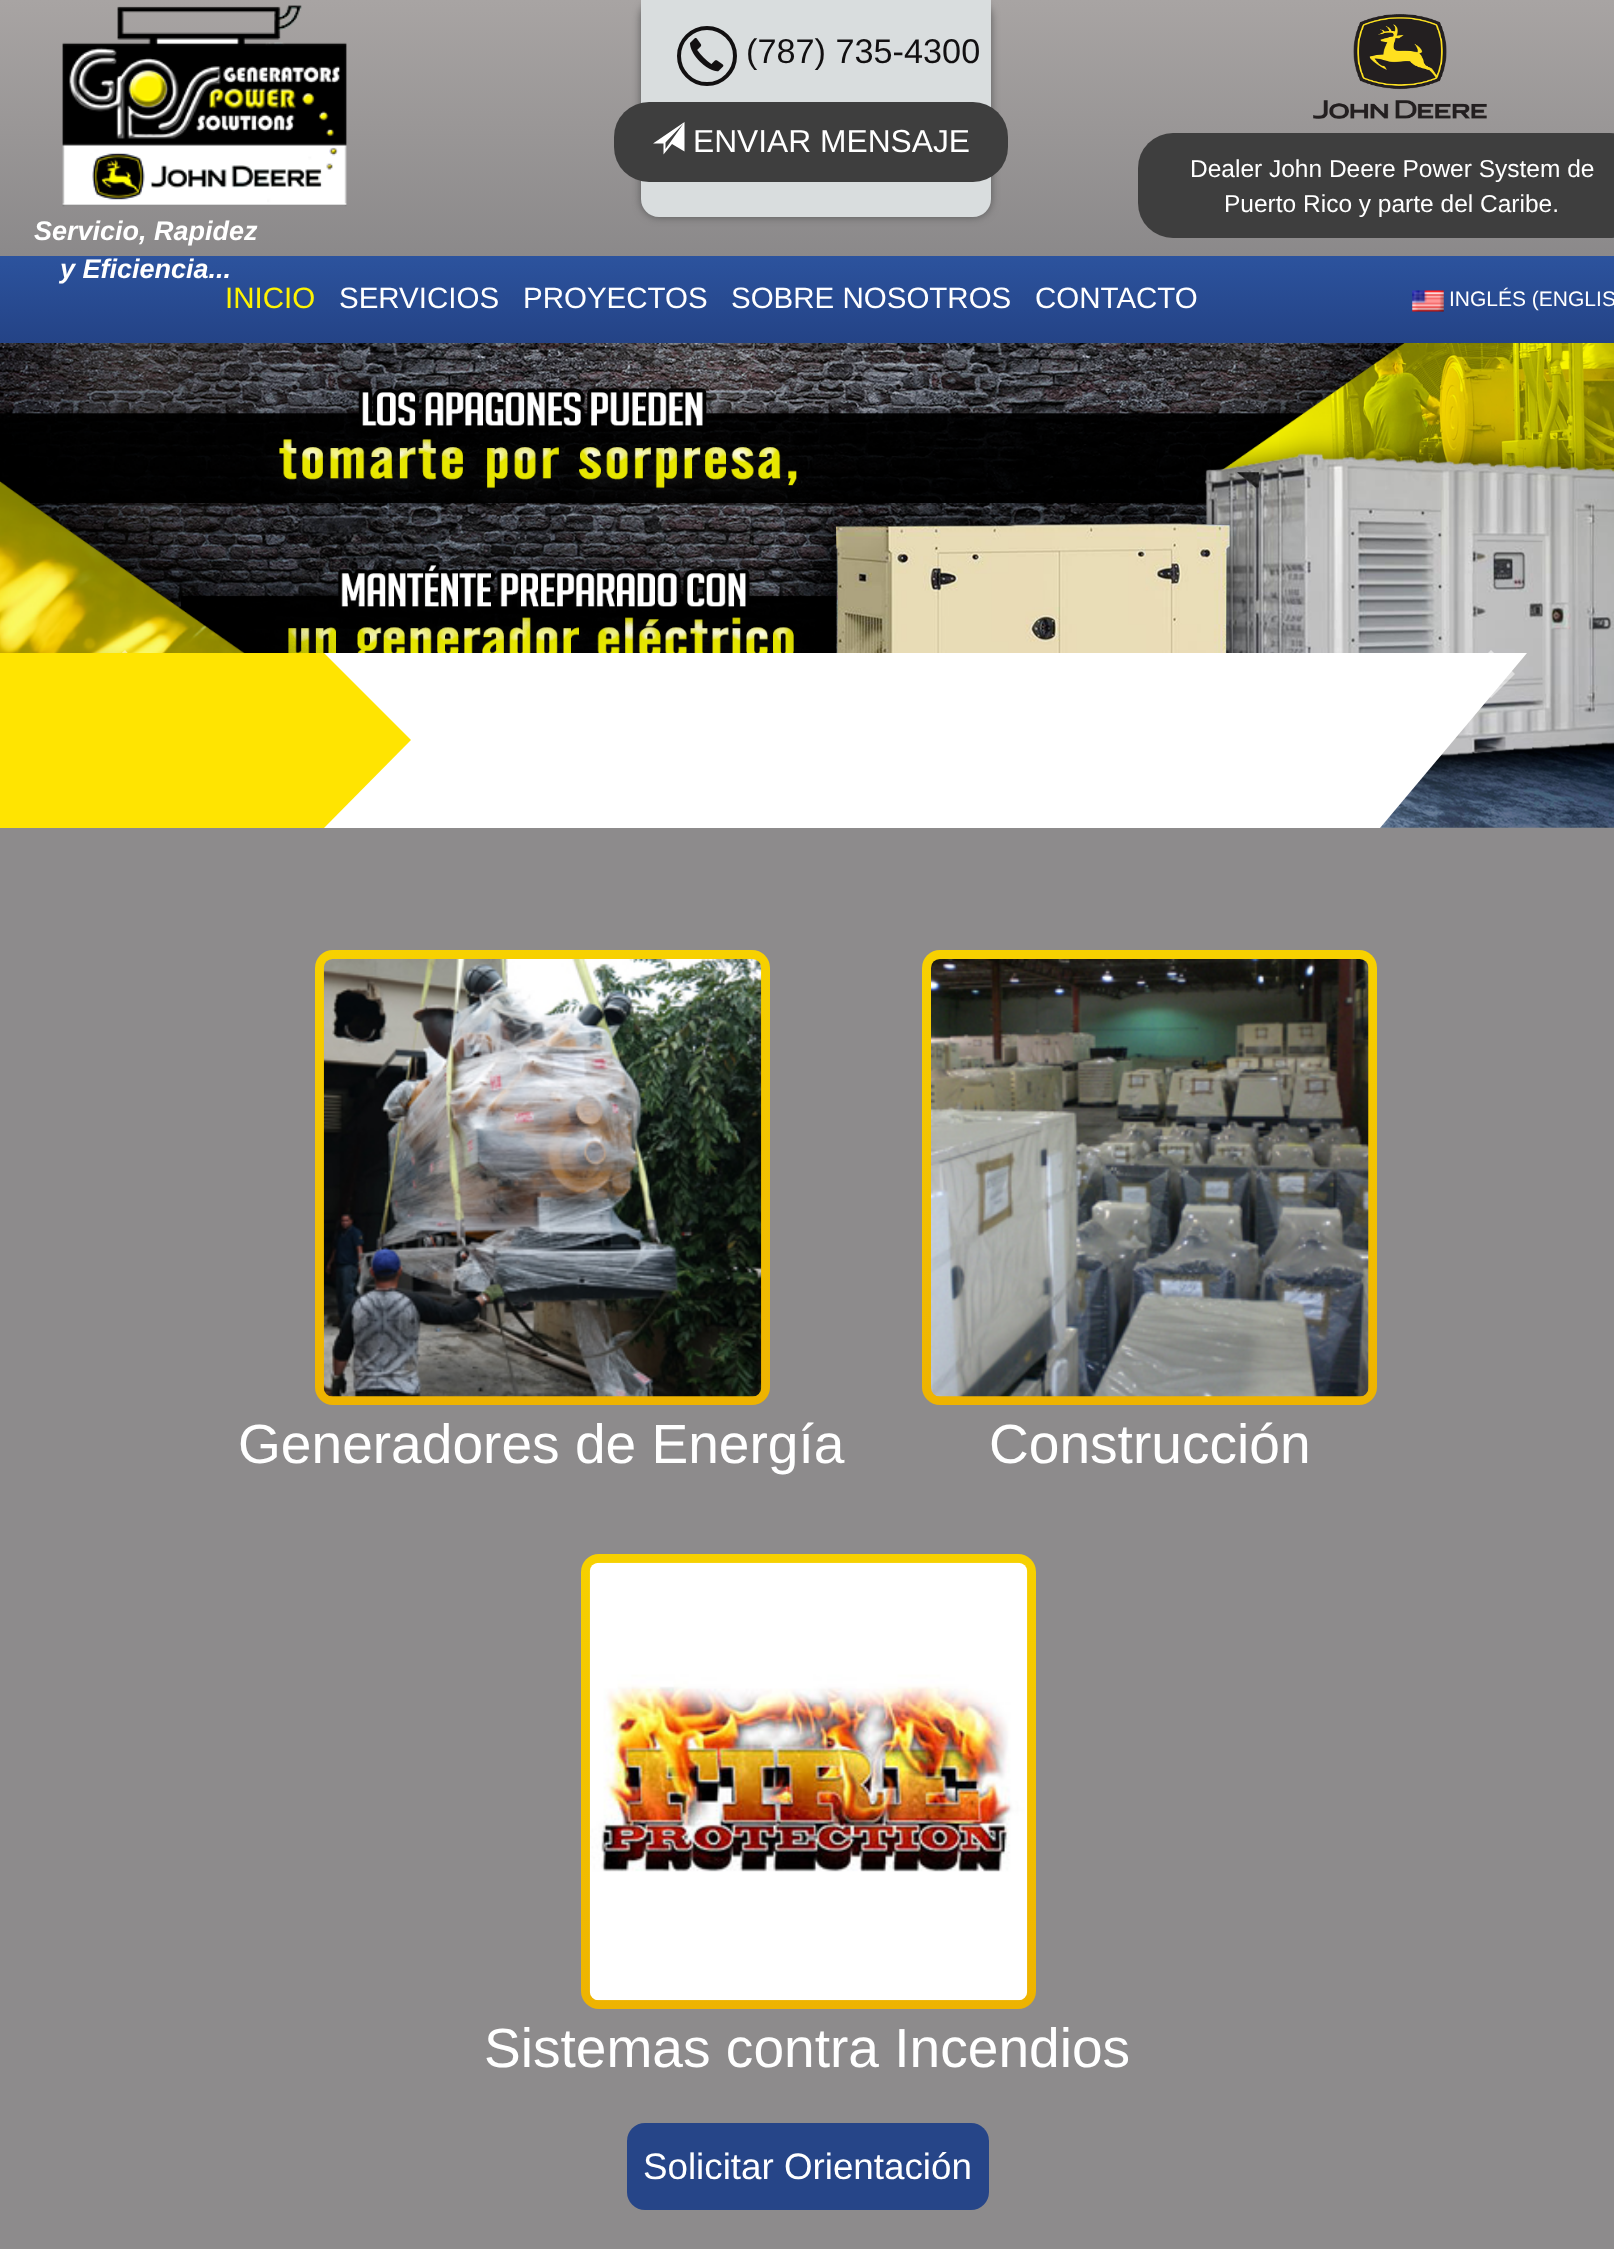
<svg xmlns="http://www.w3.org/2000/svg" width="1614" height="2249">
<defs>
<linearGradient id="g1" gradientUnits="userSpaceOnUse" x1="808" y1="0" x2="808" y2="256"><stop offset="0" stop-color="#a8a4a3"/><stop offset="1" stop-color="#8b898a"/></linearGradient>
<linearGradient id="g2" gradientUnits="userSpaceOnUse" x1="808" y1="255" x2="808" y2="343"><stop offset="0" stop-color="#2c539e"/><stop offset="1" stop-color="#244386"/></linearGradient>
<linearGradient id="g3" gradientUnits="userSpaceOnUse" x1="543" y1="950" x2="543" y2="1405"><stop offset="0" stop-color="#f7d100"/><stop offset="1" stop-color="#eeb301"/></linearGradient>
<linearGradient id="g4" gradientUnits="userSpaceOnUse" x1="1150" y1="950" x2="1150" y2="1405"><stop offset="0" stop-color="#f7d100"/><stop offset="1" stop-color="#eeb301"/></linearGradient>
<linearGradient id="g5" gradientUnits="userSpaceOnUse" x1="809" y1="1554" x2="809" y2="2009"><stop offset="0" stop-color="#f7d100"/><stop offset="1" stop-color="#eeb301"/></linearGradient>
</defs>
<rect width="100%" height="100%" fill="#fff"/>
<rect width="1614" height="256" fill="url(#g1)"/>
<rect x="641" width="350" height="217" rx="18" fill="#565656" filter="blur(4.5px)"/>
<path d="M641 0h350v199c0 10-8 18-18 18h-314c-10 0-18-8-18-18z" fill="#d9ddde"/>
<circle cx="707" cy="56" r="28" fill="none" stroke="#121011" stroke-width="4"/>
<image x="690" y="37" width="34" height="35" href="media/1.png"/>
<text x="746" y="63" style="font-family:Liberation Sans;font-size:34.25px;fill:#121011">(787) 735-4300</text>
<rect x="614" y="102" width="394" height="80" rx="35" fill="#3e3e3e"/>
<path d="M684.5 151.5l-12.5-7.5l-8.5 10.5v-11h-10.5l31.5-21.5zm-19-9v6.5l18-25.5z" fill="#fff"/>
<text x="693" y="152" style="font-family:Liberation Sans;font-size:31.75px;fill:#fff">ENVIAR MENSAJE</text>
<image x="1313" y="14" width="174" height="105" href="media/2.png"/>
<rect x="1138" y="133" width="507" height="105" rx="35" fill="#3e3e3e"/>
<text x="1190" y="177" style="font-family:Liberation Sans;font-size:24.5px;fill:#fff">Dealer John Deere Power System de</text>
<text x="1224" y="212" style="font-family:Liberation Sans;font-size:24.5px;fill:#fff">Puerto Rico y parte del Caribe.</text>
<image x="62" y="5" width="285" height="202" href="media/3.png"/>
<text x="34" y="240" style="font-family:Liberation Sans;font-size:27px;font-weight:bold;font-style:italic;fill:#fff">Servicio, Rapidez</text>
<rect y="256" width="1614" height="87" fill="url(#g2)"/>
<text x="60" y="278" style="font-family:Liberation Sans;font-size:27px;font-weight:bold;font-style:italic;fill:#fff">y Eficiencia...</text>
<text x="225" y="308" style="font-family:Liberation Sans;font-size:29.5px;fill:#fef301">INICIO</text>
<text x="339" y="308" style="font-family:Liberation Sans;font-size:29.5px;fill:#fff">SERVICIOS</text>
<text x="523" y="308" style="font-family:Liberation Sans;font-size:29.5px;fill:#fff">PROYECTOS</text>
<text x="731" y="308" style="font-family:Liberation Sans;font-size:29.5px;fill:#fff">SOBRE NOSOTROS</text>
<text x="1035" y="308" style="font-family:Liberation Sans;font-size:29.5px;fill:#fff">CONTACTO</text>
<image x="1412" y="290" width="32" height="22" href="media/4.png"/>
<text x="1449" y="306" style="font-family:Liberation Sans;font-size:21px;fill:#fff">INGLÉS (ENGLIS</text>
<rect y="827" width="1614" height="1422" fill="#8d8b8c"/>
<image x="0" y="343" width="1614" height="485" href="media/5.png"/>
<path d="M-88 653h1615l-147 175h-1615z" fill="#fff"/>
<path d="M133 659l-15 15l15 16l-8 8l-25-24l25-24z" fill="#ffffff80"/>
<path d="M1515 674l-24 24l-9-8l15-16l-15-15l9-9z" fill="#ffffff80"/>
<path d="M324 828v-175l87 87z" fill="#ffe401"/>
<rect y="653" width="324" height="175" fill="#ffe401"/>
<rect x="315" y="950" width="455" height="455" rx="18" fill="url(#g3)"/>
<image x="323" y="959" width="439" height="438" href="media/6.png"/>
<text x="238" y="1463" style="font-family:Liberation Sans;font-size:55.1px;fill:#fff">Generadores de Energía</text>
<rect x="922" y="950" width="455" height="455" rx="18" fill="url(#g4)"/>
<image x="931" y="959" width="438" height="438" href="media/7.png"/>
<text x="989" y="1463" style="font-family:Liberation Sans;font-size:55.1px;fill:#fff">Construcción</text>
<rect x="581" y="1554" width="455" height="455" rx="18" fill="url(#g5)"/>
<image x="589" y="1562" width="439" height="439" href="media/8.png"/>
<text x="484" y="2067" style="font-family:Liberation Sans;font-size:55.1px;fill:#fff">Sistemas contra Incendios</text>
<rect x="627" y="2123" width="362" height="87" rx="18" fill="#264588"/>
<text x="643" y="2179" style="font-family:Liberation Sans;font-size:36.75px;fill:#fff">Solicitar Orientación</text>
</svg>
